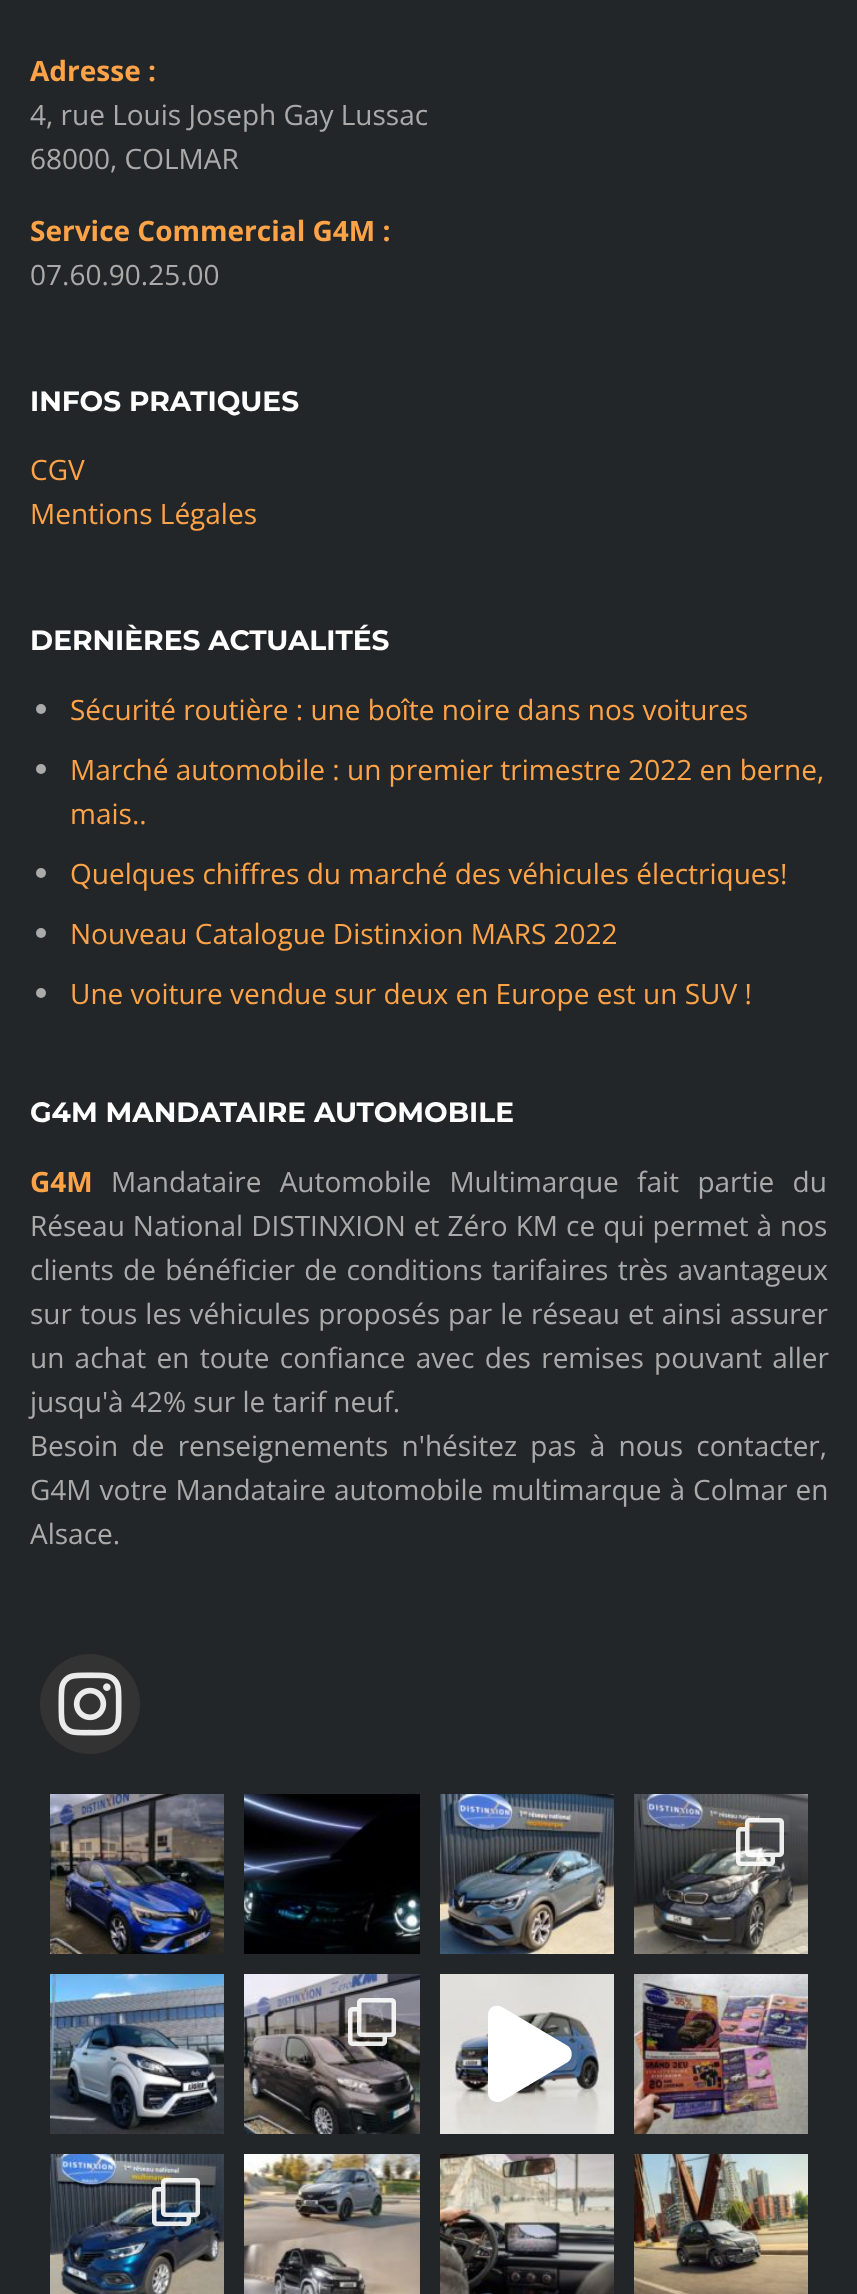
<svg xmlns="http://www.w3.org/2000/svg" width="857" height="2294">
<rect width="100%" height="100%" fill="#232628"/>
<text x="30" y="81" style="font-family:Open Sans;font-size:28px;font-weight:bold;fill:#fea347">Adresse :</text>
<text x="30" y="125" style="font-family:Open Sans;font-size:28px;fill:#aaa">4, rue Louis Joseph Gay Lussac</text>
<text x="30" y="169" style="font-family:Open Sans;font-size:28px;fill:#aaa">68000, COLMAR</text>
<text x="30" y="241" style="font-family:Open Sans;font-size:28px;font-weight:bold;fill:#fea347">Service Commercial G4M :</text>
<text x="30" y="285" style="font-family:Open Sans;font-size:28px;fill:#aaa">07.60.90.25.00</text>
<text x="30" y="411" style="font-family:Montserrat;font-size:28px;font-weight:bold;fill:#fff">INFOS PRATIQUES</text>
<text x="30" y="480" style="font-family:Open Sans;font-size:28px;fill:#fea347">CGV</text>
<text x="30" y="524" style="font-family:Open Sans;font-size:28px;fill:#fea347">Mentions Légales</text>
<text x="30" y="650" style="font-family:Montserrat;font-size:28px;font-weight:bold;fill:#fff">DERNIÈRES ACTUALITÉS</text>
<circle cx="41" cy="709" r="5" fill="#aaa"/>
<text x="70" y="720" style="font-family:Open Sans;font-size:28px;fill:#fea347">Sécurité routière : une boîte noire dans nos voitures</text>
<circle cx="41" cy="769" r="5" fill="#aaa"/>
<text x="70" y="780" style="font-family:Open Sans;font-size:28px;fill:#fea347">Marché automobile : un premier trimestre 2022 en berne,</text>
<text x="70" y="824" style="font-family:Open Sans;font-size:28px;fill:#fea347">mais..</text>
<circle cx="41" cy="873" r="5" fill="#aaa"/>
<text x="70" y="884" style="font-family:Open Sans;font-size:28px;fill:#fea347">Quelques chiffres du marché des véhicules électriques!</text>
<circle cx="41" cy="933" r="5" fill="#aaa"/>
<text x="70" y="944" style="font-family:Open Sans;font-size:28px;fill:#fea347">Nouveau Catalogue Distinxion MARS 2022</text>
<circle cx="41" cy="993" r="5" fill="#aaa"/>
<text x="70" y="1004" style="font-family:Open Sans;font-size:28px;fill:#fea347">Une voiture vendue sur deux en Europe est un SUV !</text>
<text x="30" y="1122" style="font-family:Montserrat;font-size:28px;font-weight:bold;fill:#fff">G4M MANDATAIRE AUTOMOBILE</text>
<text x="30" y="1192" style="font-family:Open Sans;font-size:28px;font-weight:bold;fill:#fea347">G4M</text>
<text x="111" y="1192" word-spacing="11" style="font-family:Open Sans;font-size:28px;fill:#aaa">Mandataire Automobile Multimarque fait partie du</text>
<text x="30" y="1236" word-spacing="0.75" style="font-family:Open Sans;font-size:28px;fill:#aaa">Réseau National DISTINXION et Zéro KM ce qui permet à nos</text>
<text x="30" y="1280" word-spacing="2" style="font-family:Open Sans;font-size:28px;fill:#aaa">clients de bénéficier de conditions tarifaires très avantageux</text>
<text x="30" y="1324" word-spacing="0.75" style="font-family:Open Sans;font-size:28px;fill:#aaa">sur tous les véhicules proposés par le réseau et ainsi assurer</text>
<text x="30" y="1368" word-spacing="3" style="font-family:Open Sans;font-size:28px;fill:#aaa">un achat en toute confiance avec des remises pouvant aller</text>
<text x="30" y="1412" style="font-family:Open Sans;font-size:28px;fill:#aaa">jusqu'à 42% sur le tarif neuf.</text>
<text x="30" y="1456" word-spacing="6" style="font-family:Open Sans;font-size:28px;fill:#aaa">Besoin de renseignements n'hésitez pas à nous contacter,</text>
<text x="30" y="1500" word-spacing="0.75" style="font-family:Open Sans;font-size:28px;fill:#aaa">G4M votre Mandataire automobile multimarque à Colmar en</text>
<text x="30" y="1544" style="font-family:Open Sans;font-size:28px;fill:#aaa">Alsace.</text>
<circle cx="90" cy="1704" r="50" fill="#333"/>
<image x="58" y="1672" width="64" height="64" href="media/1.png"/>
<image x="50" y="1794" width="174" height="160" href="media/2.png"/>
<image x="244" y="1794" width="176" height="160" href="media/3.png"/>
<image x="440" y="1794" width="174" height="160" href="media/4.png"/>
<image x="634" y="1794" width="174" height="160" href="media/5.png"/>
<image x="736" y="1818" width="48" height="48" href="media/6.png"/>
<image x="50" y="1974" width="174" height="160" href="media/7.png"/>
<image x="244" y="1974" width="176" height="160" href="media/8.png"/>
<image x="348" y="1998" width="48" height="48" href="media/9.png"/>
<image x="440" y="1974" width="174" height="160" href="media/10.png"/>
<path d="M568 2046l-66-39c-6-3-14 0-14 8v78c0 7 8 11 14 8l66-39c5-4 5-12 0-16z" fill="#fff"/>
<image x="634" y="1974" width="174" height="160" href="media/11.png"/>
<image x="50" y="2154" width="174" height="140" href="media/12.png"/>
<image x="152" y="2178" width="48" height="48" href="media/13.png"/>
<image x="244" y="2154" width="176" height="140" href="media/14.png"/>
<image x="440" y="2154" width="174" height="140" href="media/15.png"/>
<image x="634" y="2154" width="174" height="140" href="media/16.png"/>
</svg>
